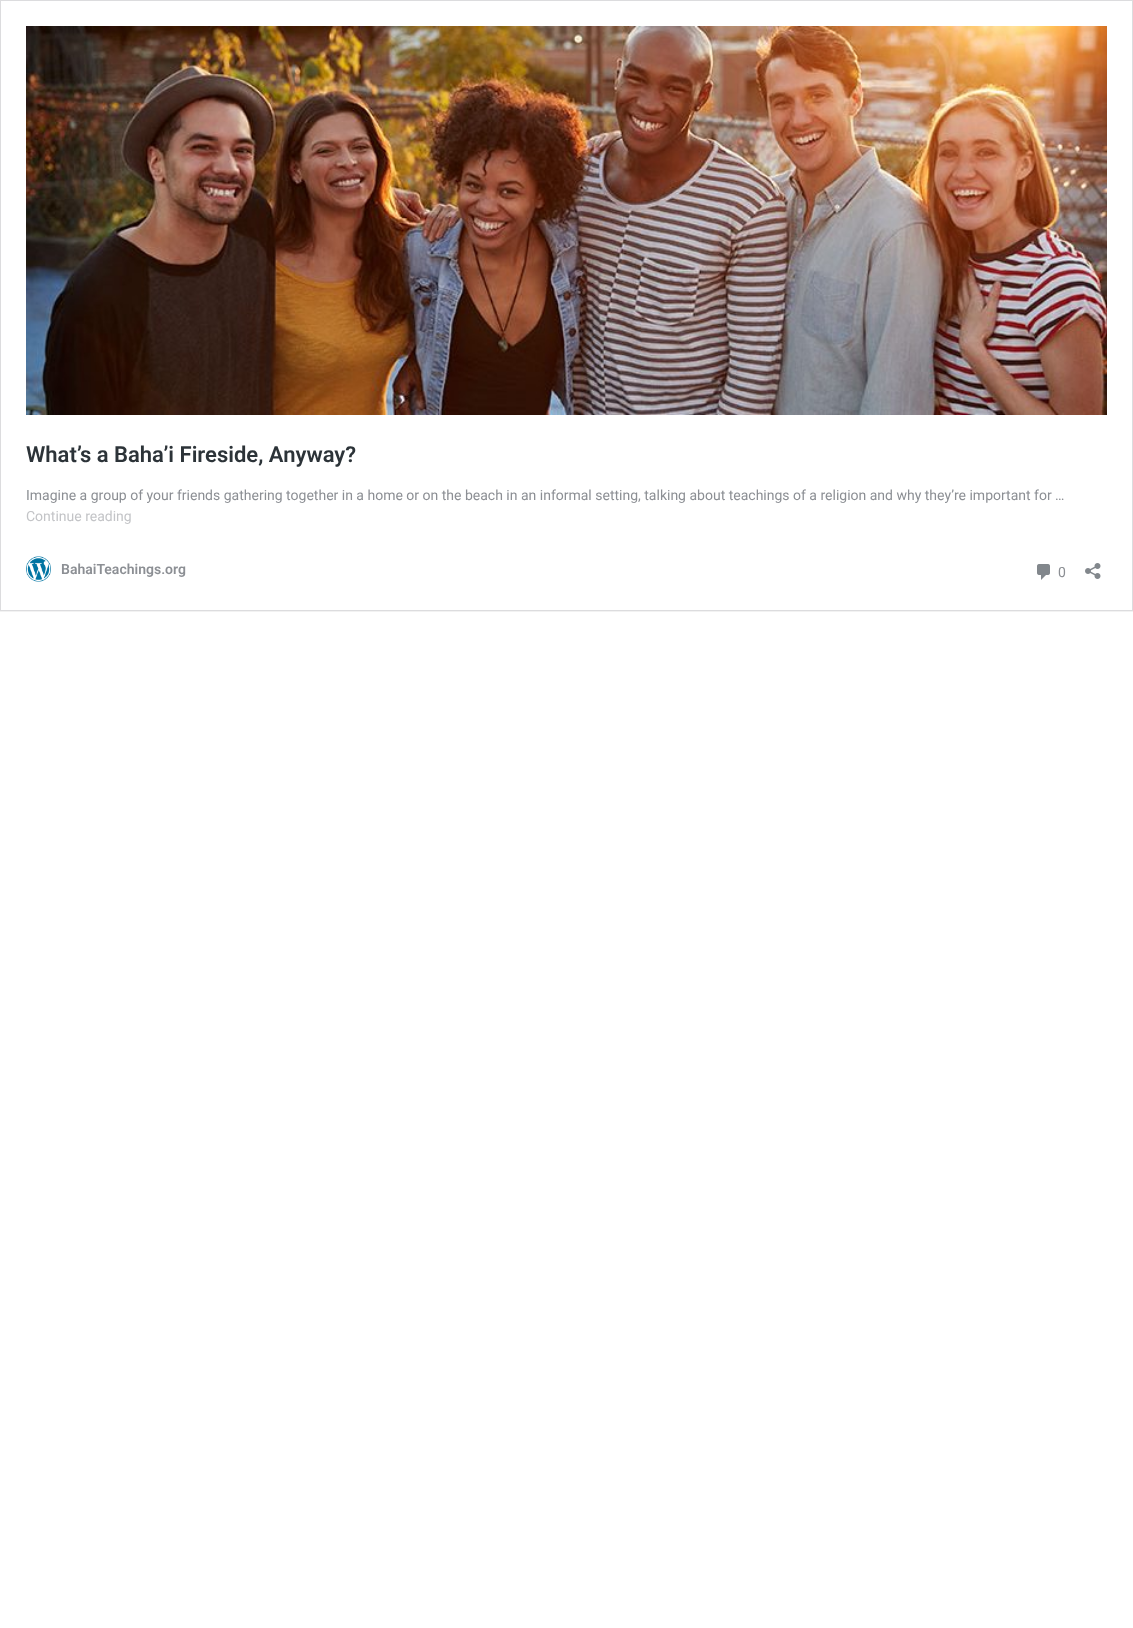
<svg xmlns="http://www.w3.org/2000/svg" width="1133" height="1628">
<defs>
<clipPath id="clip1"><rect x="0" y="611" width="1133" height="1"/></clipPath>
</defs>
<rect width="100%" height="100%" fill="#fff"/>
<g clip-path="url(#clip1)">
<rect y="1" width="1133" height="611" fill="#0000000d" filter="blur(0.5px)"/>
</g>
<rect x="0.5" y="0.5" width="1132" height="610" fill="none" stroke="#dcdcde"/>
<image x="26" y="26" width="1081" height="389" href="media/1.png"/>
<text x="26" y="462" style="font-family:Roboto;font-size:22px;font-weight:600;fill:#2c3338">What’s a Baha’i Fireside, Anyway?</text>
<text x="26" y="500" style="font-family:Roboto;font-size:14px;fill:#8c8f94">Imagine a group of your friends gathering together in a home or on the beach in an informal setting, talking about teachings of a religion and why they’re important for …</text>
<text x="26" y="521" style="font-family:Roboto;font-size:14px;fill:#c3c4c7">Continue reading</text>
<image x="26" y="556" width="25" height="26" href="media/2.png"/>
<text x="61" y="574" style="font-family:Roboto;font-size:14px;font-weight:600;fill:#8c8f94">BahaiTeachings.org</text>
<image x="1037" y="564" width="13" height="16" href="media/3.png"/>
<text x="1058" y="577" style="font-family:Roboto;font-size:14px;fill:#8c8f94">0</text>
<image x="1085" y="563" width="16" height="16" href="media/4.png"/>
</svg>
